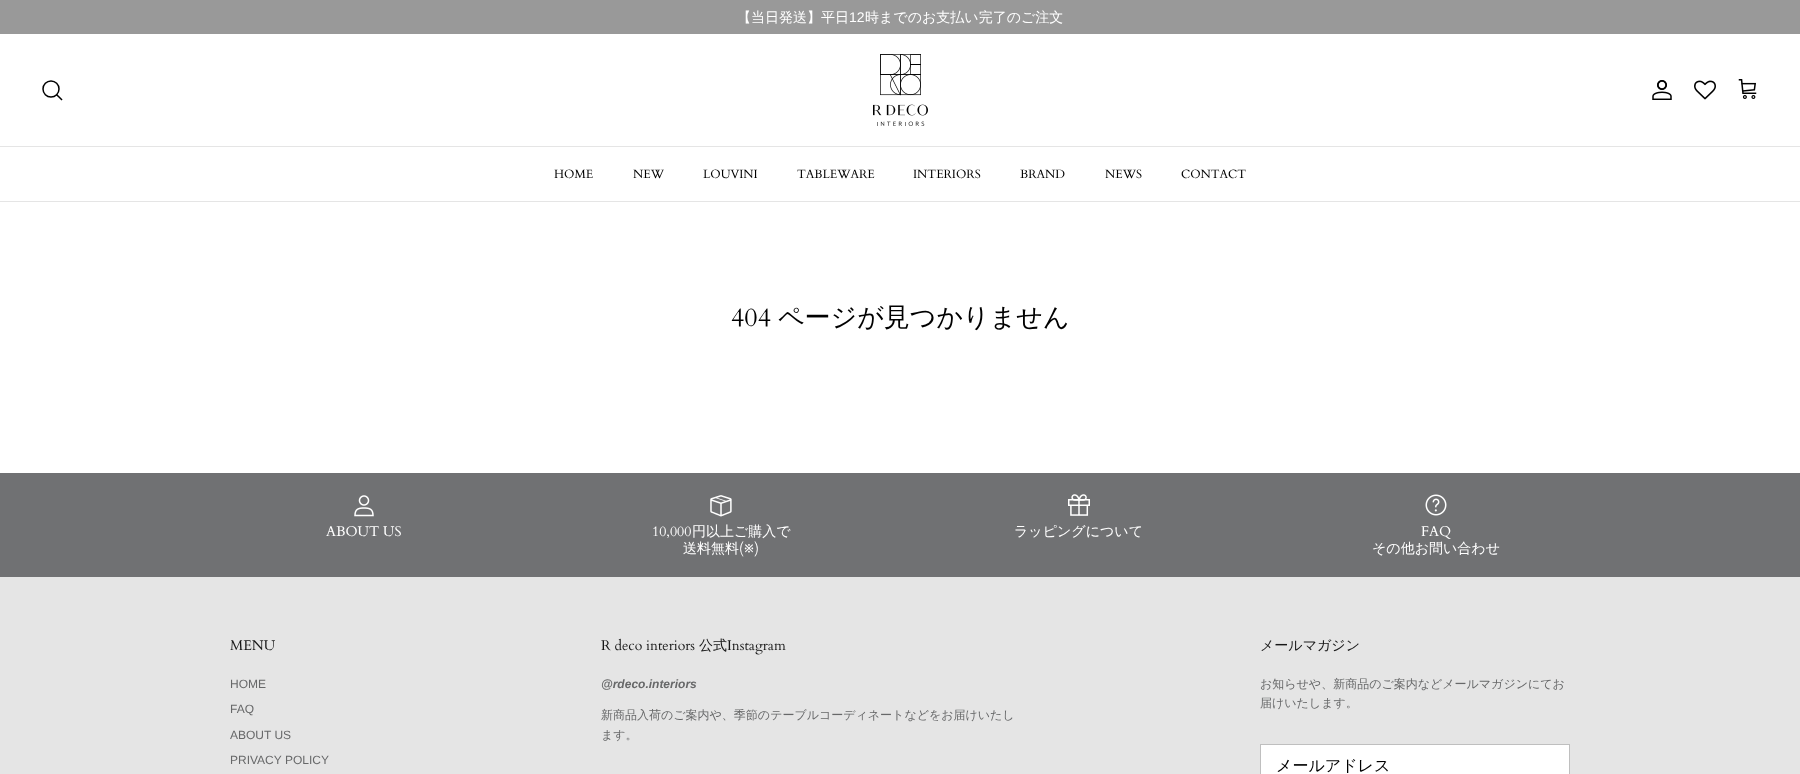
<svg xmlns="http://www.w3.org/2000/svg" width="1800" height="774">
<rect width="100%" height="100%" fill="#fff"/>
<rect width="1800" height="34" fill="#999"/>
<text x="737" y="22" style="font-family:WenQuanYi Zen Hei;font-size:14px;font-weight:500;fill:#fff">【当日発送】平日</text>
<text x="849" y="22" style="font-family:Liberation Sans;font-size:14px;fill:#fff">12</text>
<text x="865" y="22" style="font-family:WenQuanYi Zen Hei;font-size:14px;font-weight:500;fill:#fff">時までのお支払い完了のご注文</text>
<rect y="146" width="1800" height="1" fill="#e5e5e5"/>
<circle cx="51" cy="89" r="8" fill="none" stroke="#000" stroke-width="1.5"/>
<path d="M57 95l4.5 4.5" fill="none" stroke="#000" stroke-width="1.5" stroke-linecap="square"/>
<image x="873" y="54" width="55" height="72" href="media/1.png"/>
<image x="1652" y="80" width="20" height="20" href="media/2.png"/>
<image x="1694" y="80" width="22" height="20" href="media/3.png"/>
<image x="1738" y="79" width="19" height="20" href="media/4.png"/>
<rect y="201" width="1800" height="1" fill="#e5e5e5"/>
<text x="554" y="178" style="font-family:Cardo;font-size:12px;fill:#000">HOME</text>
<text x="633" y="178" style="font-family:Cardo;font-size:12px;fill:#000">NEW</text>
<text x="703" y="178" style="font-family:Cardo;font-size:12px;fill:#000">LOUVINI</text>
<text x="797" y="178" style="font-family:Cardo;font-size:12px;fill:#000">TABLEWARE</text>
<text x="913" y="178" style="font-family:Cardo;font-size:12px;fill:#000">INTERIORS</text>
<text x="1020" y="178" style="font-family:Cardo;font-size:12px;fill:#000">BRAND</text>
<text x="1105" y="178" style="font-family:Cardo;font-size:12px;fill:#000">NEWS</text>
<text x="1181" y="178" style="font-family:Cardo;font-size:12px;fill:#000">CONTACT</text>
<text x="731" y="326" style="font-family:Cardo;font-size:26px;fill:#000">404</text>
<text x="778" y="326" style="font-family:WenQuanYi Zen Hei;font-size:26px;font-weight:500;fill:#000">ページが見つかりません</text>
<rect y="577" width="1800" height="197" fill="#e5e5e5"/>
<rect y="473" width="1800" height="104" fill="#707173"/>
<image x="354" y="495" width="20" height="22" href="media/5.png"/>
<text x="326" y="536" style="font-family:Cardo;font-size:14px;fill:#fff">ABOUT US</text>
<image x="710" y="495" width="22" height="22" href="media/6.png"/>
<text x="652" y="536" style="font-family:Cardo;font-size:14px;fill:#fff">10,000</text>
<text x="692" y="536" style="font-family:WenQuanYi Zen Hei;font-size:14px;font-weight:500;fill:#fff">円以上ご購入で</text>
<text x="683" y="553" style="font-family:WenQuanYi Zen Hei;font-size:14px;font-weight:500;fill:#fff">送料無料</text>
<text x="739" y="553" style="font-family:Cardo;font-size:14px;fill:#fff">(※)</text>
<image x="1068" y="494" width="22" height="22" href="media/7.png"/>
<text x="1014" y="536" style="font-family:WenQuanYi Zen Hei;font-size:14px;font-weight:500;fill:#fff">ラッピングについて</text>
<image x="1425" y="494" width="22" height="22" href="media/8.png"/>
<text x="1421" y="536" style="font-family:Cardo;font-size:14px;fill:#fff">FAQ</text>
<text x="1372" y="553" style="font-family:WenQuanYi Zen Hei;font-size:14px;font-weight:500;fill:#fff">その他お問い合わせ</text>
<text x="230" y="650" style="font-family:Cardo;font-size:14px;fill:#171717">MENU</text>
<text x="230" y="688" style="font-family:Liberation Sans;font-size:12px;fill:#676869">HOME</text>
<text x="230" y="713" style="font-family:Liberation Sans;font-size:12px;fill:#676869">FAQ</text>
<text x="230" y="739" style="font-family:Liberation Sans;font-size:12px;fill:#676869">ABOUT US</text>
<text x="230" y="764" style="font-family:Liberation Sans;font-size:12px;fill:#676869">PRIVACY POLICY</text>
<text x="601" y="650" style="font-family:Cardo;font-size:14px;fill:#171717">R deco interiors</text>
<text x="699" y="650" style="font-family:WenQuanYi Zen Hei;font-size:14px;font-weight:500;fill:#171717">公式</text>
<text x="727" y="650" style="font-family:Cardo;font-size:14px;fill:#171717">Instagram</text>
<text x="601" y="688" style="font-family:Liberation Sans;font-size:12px;font-weight:bold;font-style:italic;fill:#676869">@rdeco.interiors</text>
<text x="601" y="719" style="font-family:WenQuanYi Zen Hei;font-size:12px;font-weight:500;fill:#676869">新商品入荷のご案内や、季節のテーブルコーディネートなどをお届けいたし</text>
<text x="601" y="739" style="font-family:WenQuanYi Zen Hei;font-size:12px;font-weight:500;fill:#676869">ます。</text>
<text x="1260" y="650" style="font-family:WenQuanYi Zen Hei;font-size:14px;font-weight:500;fill:#171717">メールマガジン</text>
<text x="1260" y="688" style="font-family:WenQuanYi Zen Hei;font-size:12px;font-weight:500;fill:#676869">お知らせや、新商品のご案内などメールマガジンにてお</text>
<text x="1260" y="707" style="font-family:WenQuanYi Zen Hei;font-size:12px;font-weight:500;fill:#676869">届けいたします。</text>
<rect x="1260.5" y="744.5" width="309" height="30" fill="#fff" stroke="#bfbfbf"/>
<text x="1276" y="771" style="font-family:WenQuanYi Zen Hei;font-size:16px;font-weight:500;fill:#000">メールアドレス</text>
</svg>
